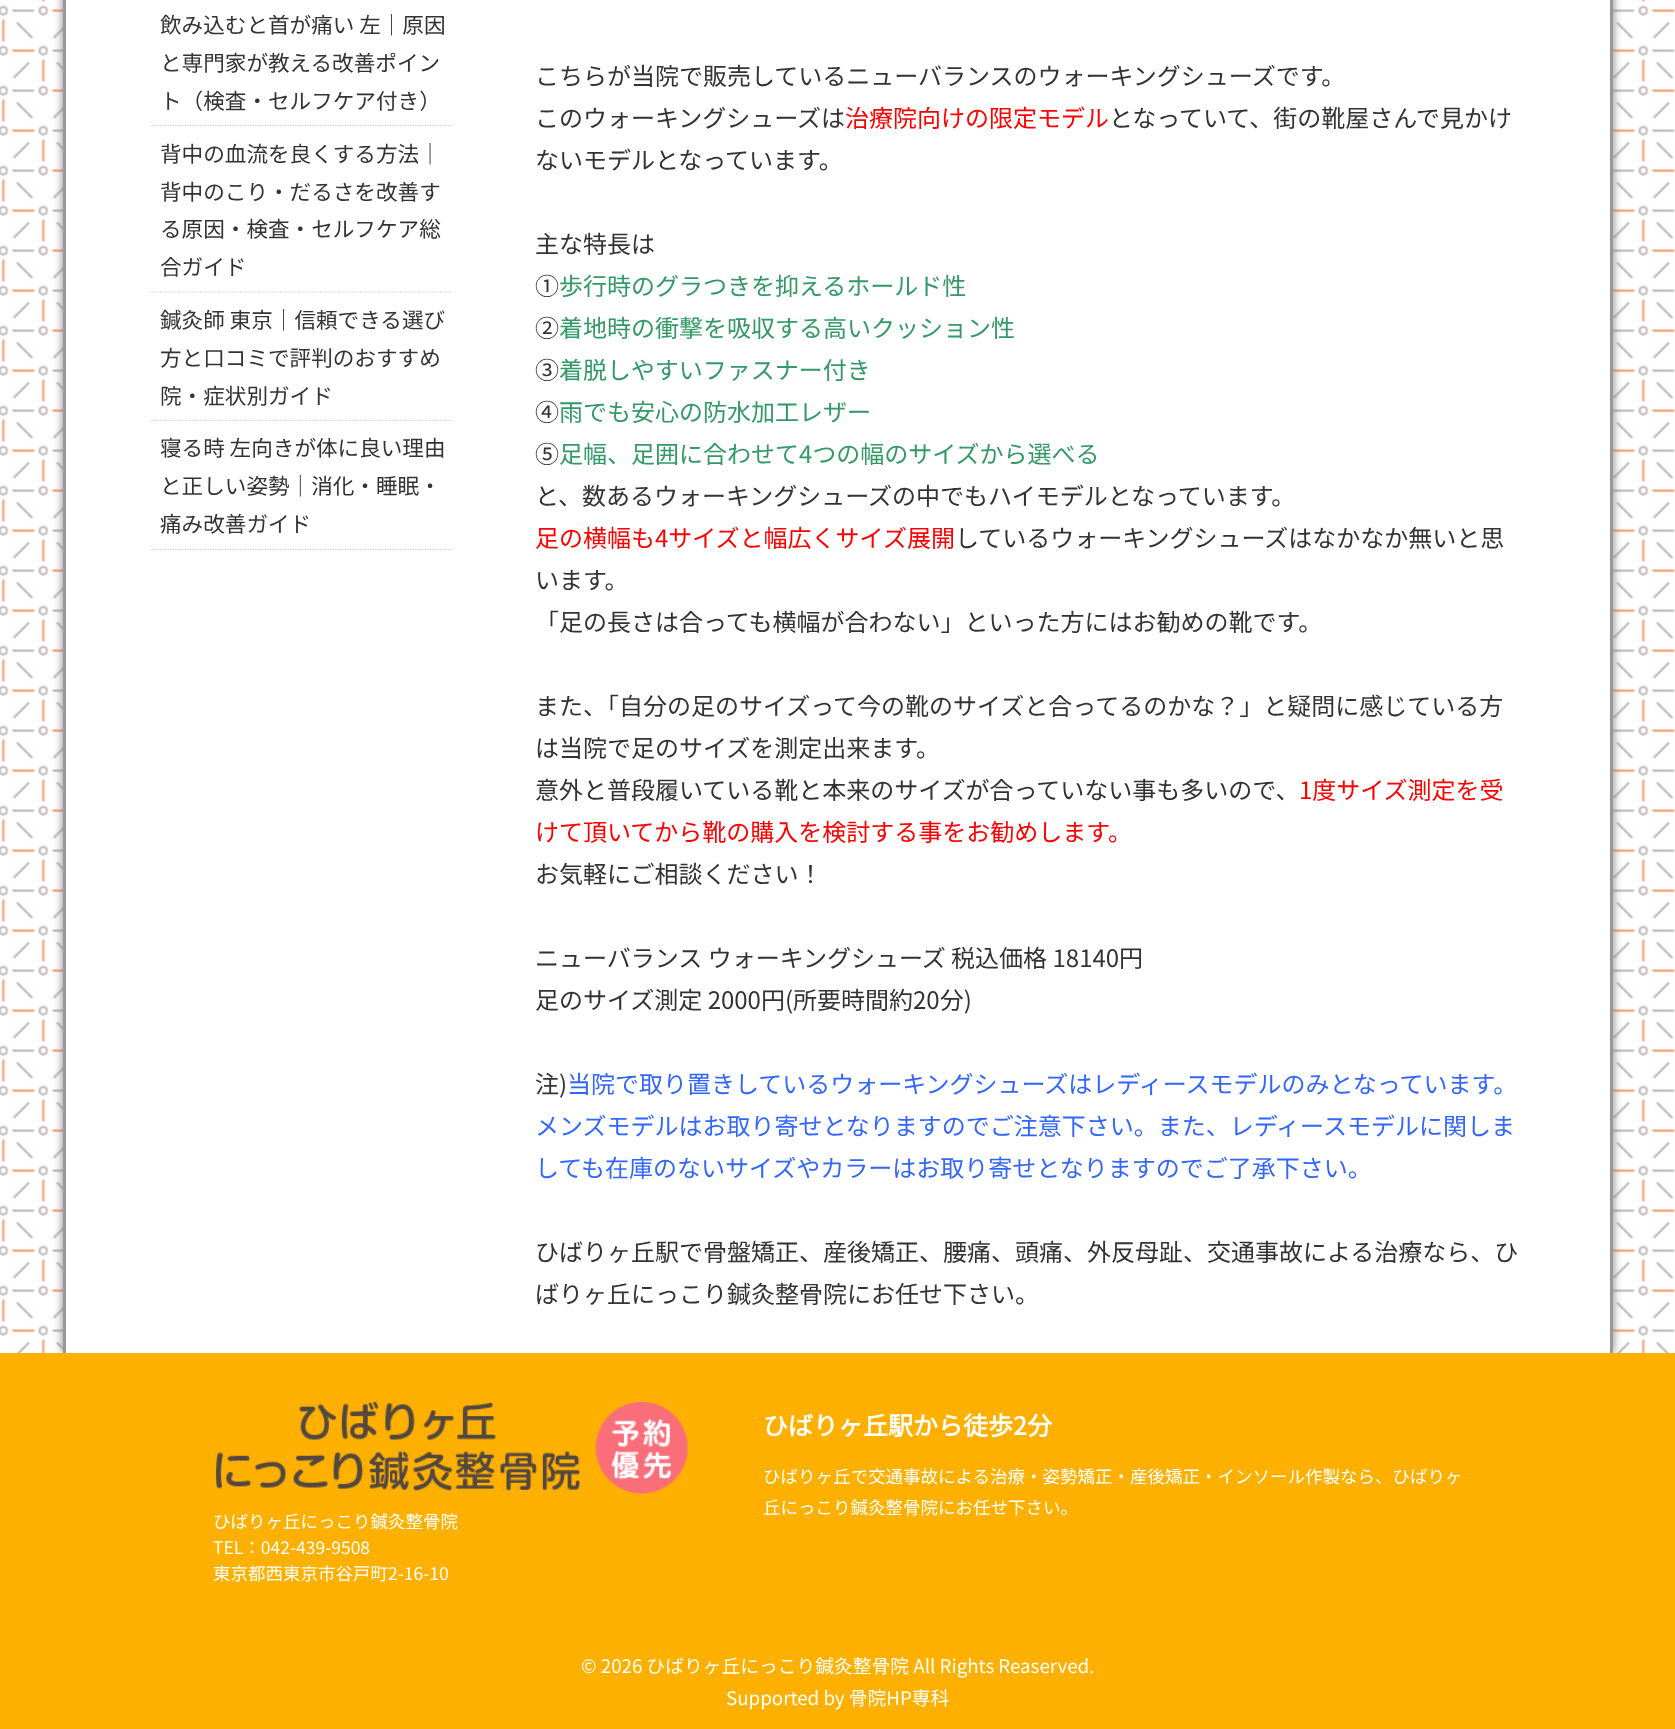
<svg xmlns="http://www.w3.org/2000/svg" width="1675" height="1729">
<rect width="100%" height="100%" fill="#fff"/>
<image x="0" y="0" width="1675" height="1353" href="media/1.png"/>
<rect x="63" y="-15" width="1550" height="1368" fill="#808080" filter="blur(5px)"/>
<rect x="66" width="1544" height="1353" fill="#fff"/>
<rect x="1610" width="3" height="1353" fill="#999"/>
<rect x="63" width="3" height="1353" fill="#999"/>
<path d="M150 125.5h302.5" fill="none" stroke="#ccc" stroke-width="1.2" stroke-dasharray="1.25 1.25"/>
<text x="160" y="33" style="font-family:Noto Sans JP;font-size:21.6px;font-weight:100;fill:#333">飲み込むと首が痛い 左｜原因</text>
<text x="160" y="71" style="font-family:Noto Sans JP;font-size:21.6px;font-weight:100;fill:#333">と専門家が教える改善ポイン</text>
<text x="160" y="109" style="font-family:Noto Sans JP;font-size:21.6px;font-weight:100;fill:#333">ト（検査・セルフケア付き）</text>
<path d="M150 292h302.5" fill="none" stroke="#ccc" stroke-width="1.2" stroke-dasharray="1.25 1.25"/>
<text x="160" y="162" style="font-family:Noto Sans JP;font-size:21.6px;font-weight:100;fill:#333">背中の血流を良くする方法｜</text>
<text x="160" y="200" style="font-family:Noto Sans JP;font-size:21.6px;font-weight:100;fill:#333">背中のこり・だるさを改善す</text>
<text x="160" y="237" style="font-family:Noto Sans JP;font-size:21.6px;font-weight:100;fill:#333">る原因・検査・セルフケア総</text>
<text x="160" y="275" style="font-family:Noto Sans JP;font-size:21.6px;font-weight:100;fill:#333">合ガイド</text>
<path d="M150 420.5h302.5" fill="none" stroke="#ccc" stroke-width="1.2" stroke-dasharray="1.25 1.25"/>
<text x="160" y="328" style="font-family:Noto Sans JP;font-size:21.6px;font-weight:100;fill:#333">鍼灸師 東京｜信頼できる選び</text>
<text x="160" y="366" style="font-family:Noto Sans JP;font-size:21.6px;font-weight:100;fill:#333">方と口コミで評判のおすすめ</text>
<text x="160" y="404" style="font-family:Noto Sans JP;font-size:21.6px;font-weight:100;fill:#333">院・症状別ガイド</text>
<path d="M150 549.5h302.5" fill="none" stroke="#ccc" stroke-width="1.2" stroke-dasharray="1.25 1.25"/>
<text x="160" y="456" style="font-family:Noto Sans JP;font-size:21.6px;font-weight:100;fill:#333">寝る時 左向きが体に良い理由</text>
<text x="160" y="494" style="font-family:Noto Sans JP;font-size:21.6px;font-weight:100;fill:#333">と正しい姿勢｜消化・睡眠・</text>
<text x="160" y="532" style="font-family:Noto Sans JP;font-size:21.6px;font-weight:100;fill:#333">痛み改善ガイド</text>
<text x="535" y="85" style="font-family:Noto Sans JP;font-size:24px;font-weight:100;fill:#333">こちらが当院で販売しているニューバランスのウォーキングシューズです。</text>
<text x="535" y="127" style="font-family:Noto Sans JP;font-size:24px;font-weight:100;fill:#333">このウォーキングシューズは</text>
<text x="845" y="127" style="font-family:Noto Sans JP;font-size:24px;font-weight:100;fill:#f00">治療院向けの限定モデル</text>
<text x="1109" y="127" style="font-family:Noto Sans JP;font-size:24px;font-weight:100;fill:#333">となっていて、街の靴屋さんで見かけ</text>
<text x="535" y="169" style="font-family:Noto Sans JP;font-size:24px;font-weight:100;fill:#333">ないモデルとなっています。</text>
<text x="535" y="253" style="font-family:Noto Sans JP;font-size:24px;font-weight:100;fill:#333">主な特長は</text>
<text x="535" y="295" style="font-family:Noto Sans JP;font-size:24px;font-weight:100;fill:#333">①</text>
<text x="559" y="295" style="font-family:Noto Sans JP;font-size:24px;font-weight:100;fill:#396">歩行時のグラつきを抑えるホールド性</text>
<text x="535" y="337" style="font-family:Noto Sans JP;font-size:24px;font-weight:100;fill:#333">②</text>
<text x="559" y="337" style="font-family:Noto Sans JP;font-size:24px;font-weight:100;fill:#396">着地時の衝撃を吸収する高いクッション性</text>
<text x="535" y="379" style="font-family:Noto Sans JP;font-size:24px;font-weight:100;fill:#333">③</text>
<text x="559" y="379" style="font-family:Noto Sans JP;font-size:24px;font-weight:100;fill:#396">着脱しやすいファスナー付き</text>
<text x="535" y="421" style="font-family:Noto Sans JP;font-size:24px;font-weight:100;fill:#333">④</text>
<text x="559" y="421" style="font-family:Noto Sans JP;font-size:24px;font-weight:100;fill:#396">雨でも安心の防水加工レザー</text>
<text x="535" y="463" style="font-family:Noto Sans JP;font-size:24px;font-weight:100;fill:#333">⑤</text>
<text x="559" y="463" style="font-family:Noto Sans JP;font-size:24px;font-weight:100;fill:#396">足幅、足囲に合わせて4つの幅のサイズから選べる</text>
<text x="535" y="505" style="font-family:Noto Sans JP;font-size:24px;font-weight:100;fill:#333">と、数あるウォーキングシューズの中でもハイモデルとなっています。</text>
<text x="535" y="547" style="font-family:Noto Sans JP;font-size:24px;font-weight:100;fill:#f00">足の横幅も4サイズと幅広くサイズ展開</text>
<text x="955" y="547" style="font-family:Noto Sans JP;font-size:24px;font-weight:100;fill:#333">しているウォーキングシューズはなかなか無いと思</text>
<text x="535" y="589" style="font-family:Noto Sans JP;font-size:24px;font-weight:100;fill:#333">います。</text>
<text x="535" y="631" style="font-family:Noto Sans JP;font-size:24px;font-weight:100;fill:#333">「足の長さは合っても横幅が合わない」といった方にはお勧めの靴です。</text>
<text x="535" y="715" style="font-family:Noto Sans JP;font-size:24px;font-weight:100;fill:#333">また、「自分の足のサイズって今の靴のサイズと合ってるのかな？」と疑問に感じている方</text>
<text x="535" y="757" style="font-family:Noto Sans JP;font-size:24px;font-weight:100;fill:#333">は当院で足のサイズを測定出来ます。</text>
<text x="535" y="799" style="font-family:Noto Sans JP;font-size:24px;font-weight:100;fill:#333">意外と普段履いている靴と本来のサイズが合っていない事も多いので、</text>
<text x="1299" y="799" style="font-family:Noto Sans JP;font-size:24px;font-weight:100;fill:#f00">1度サイズ測定を受</text>
<text x="535" y="841" style="font-family:Noto Sans JP;font-size:24px;font-weight:100;fill:#f00">けて頂いてから靴の購入を検討する事をお勧めします。</text>
<text x="535" y="883" style="font-family:Noto Sans JP;font-size:24px;font-weight:100;fill:#333">お気軽にご相談ください！</text>
<text x="535" y="967" style="font-family:Noto Sans JP;font-size:24px;font-weight:100;fill:#333">ニューバランス ウォーキングシューズ 税込価格 18140円</text>
<text x="535" y="1009" style="font-family:Noto Sans JP;font-size:24px;font-weight:100;fill:#333">足のサイズ測定 2000円(所要時間約20分)</text>
<text x="535" y="1093" style="font-family:Noto Sans JP;font-size:24px;font-weight:100;fill:#333">注)</text>
<text x="567" y="1093" style="font-family:Noto Sans JP;font-size:24px;font-weight:100;fill:#36f">当院で取り置きしているウォーキングシューズはレディースモデルのみとなっています。</text>
<text x="535" y="1135" style="font-family:Noto Sans JP;font-size:24px;font-weight:100;fill:#36f">メンズモデルはお取り寄せとなりますのでご注意下さい。また、レディースモデルに関しま</text>
<text x="535" y="1177" style="font-family:Noto Sans JP;font-size:24px;font-weight:100;fill:#36f">しても在庫のないサイズやカラーはお取り寄せとなりますのでご了承下さい。</text>
<text x="535" y="1261" style="font-family:Noto Sans JP;font-size:24px;font-weight:100;fill:#333">ひばりヶ丘駅で骨盤矯正、産後矯正、腰痛、頭痛、外反母趾、交通事故による治療なら、ひ</text>
<text x="535" y="1303" style="font-family:Noto Sans JP;font-size:24px;font-weight:100;fill:#333">ばりヶ丘にっこり鍼灸整骨院にお任せ下さい。</text>
<rect y="1353" width="1675" height="376" fill="#fdb000"/>
<text x="763" y="1435" style="font-family:Noto Sans JP;font-size:25px;font-weight:bold;fill:#fff">ひばりヶ丘駅から徒歩2分</text>
<text x="763" y="1483" style="font-family:Noto Sans JP;font-size:17.5px;font-weight:100;fill:#fff">ひばりヶ丘で交通事故による治療・姿勢矯正・産後矯正・インソール作製なら、ひばりヶ</text>
<text x="763" y="1514" style="font-family:Noto Sans JP;font-size:17.5px;font-weight:100;fill:#fff">丘にっこり鍼灸整骨院にお任せ下さい。</text>
<image x="216" y="1402" width="472" height="92" href="media/2.png"/>
<text x="213" y="1528" style="font-family:Noto Sans JP;font-size:17.5px;font-weight:100;fill:#fff">ひばりヶ丘にっこり鍼灸整骨院</text>
<text x="213" y="1554" style="font-family:Noto Sans JP;font-size:17.5px;font-weight:100;fill:#fff">TEL：042-439-9508</text>
<text x="213" y="1580" style="font-family:Noto Sans JP;font-size:17.5px;font-weight:100;fill:#fff">東京都西東京市谷戸町2-16-10</text>
<text x="581" y="1673" style="font-family:Noto Sans JP;font-size:18.75px;font-weight:100;fill:#fff">© 2026 ひばりヶ丘にっこり鍼灸整骨院 All Rights Reaserved.</text>
<text x="726" y="1705" style="font-family:Noto Sans JP;font-size:18.75px;font-weight:100;fill:#fff">Supported by 骨院HP専科</text>
</svg>
